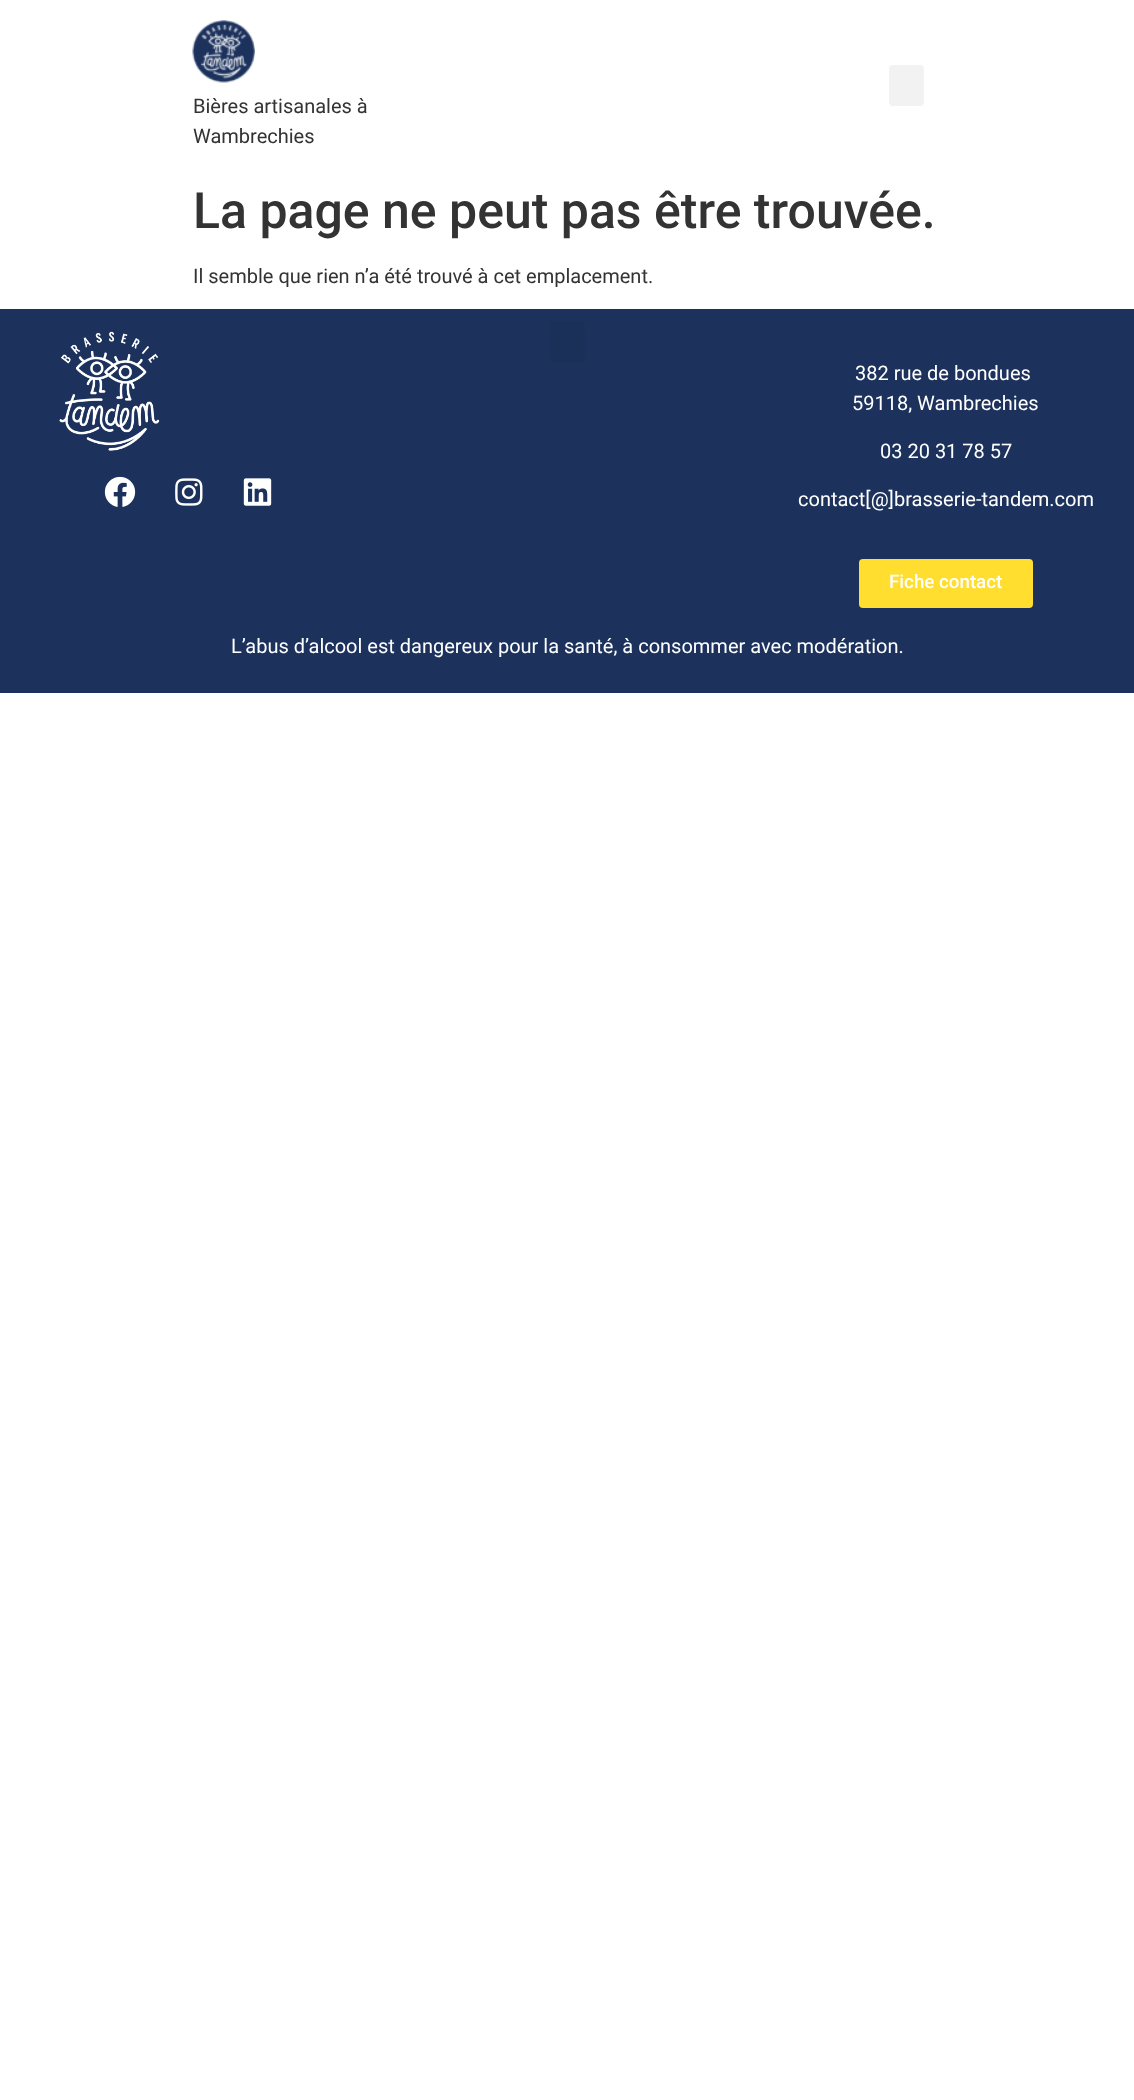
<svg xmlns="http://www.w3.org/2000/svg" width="1134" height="2100">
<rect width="100%" height="100%" fill="#fff"/>
<rect x="889" y="65" width="35" height="41" rx="4" fill="#f2f2f2"/>
<image x="192" y="20" width="63" height="63" href="media/1.png"/>
<text x="193" y="113" style="font-family:Roboto;font-size:20px;fill:#333">Bières artisanales à</text>
<text x="193" y="143" style="font-family:Roboto;font-size:20px;fill:#333">Wambrechies</text>
<text x="193" y="228" style="font-family:Roboto;font-size:50px;font-weight:500;fill:#333">La page ne peut pas être trouvée.</text>
<text x="193" y="283" style="font-family:Roboto;font-size:20px;fill:#333">Il semble que rien n’a été trouvé à cet emplacement.</text>
<rect y="309" width="1134" height="384" fill="#1c325d"/>
<image x="59" y="331" width="101" height="120" href="media/2.png"/>
<image x="104" y="476" width="32" height="31" href="media/3.png"/>
<image x="175" y="478" width="28" height="28" href="media/4.png"/>
<image x="243" y="478" width="29" height="28" href="media/5.png"/>
<rect x="550" y="321" width="35" height="42" rx="4" fill="#1b3058"/>
<text x="855" y="380" style="font-family:Roboto;font-size:20px;fill:#fff">382 rue de bondues</text>
<text x="852" y="410" style="font-family:Roboto;font-size:20px;fill:#fff">59118, Wambrechies</text>
<text x="880" y="458" style="font-family:Roboto;font-size:20px;fill:#fff">03 20 31 78 57</text>
<text x="798" y="506" style="font-family:Roboto;font-size:20px;fill:#fff">contact[@]brasserie-tandem.com</text>
<rect x="859" y="559" width="174" height="49" rx="4" fill="#ffde30"/>
<text x="889" y="588" style="font-family:Roboto;font-size:18.75px;font-weight:500;fill:#fff">Fiche contact</text>
<text x="231" y="653" style="font-family:Roboto;font-size:20px;fill:#fff">L’abus d’alcool est dangereux pour la santé, à consommer avec modération.</text>
</svg>
